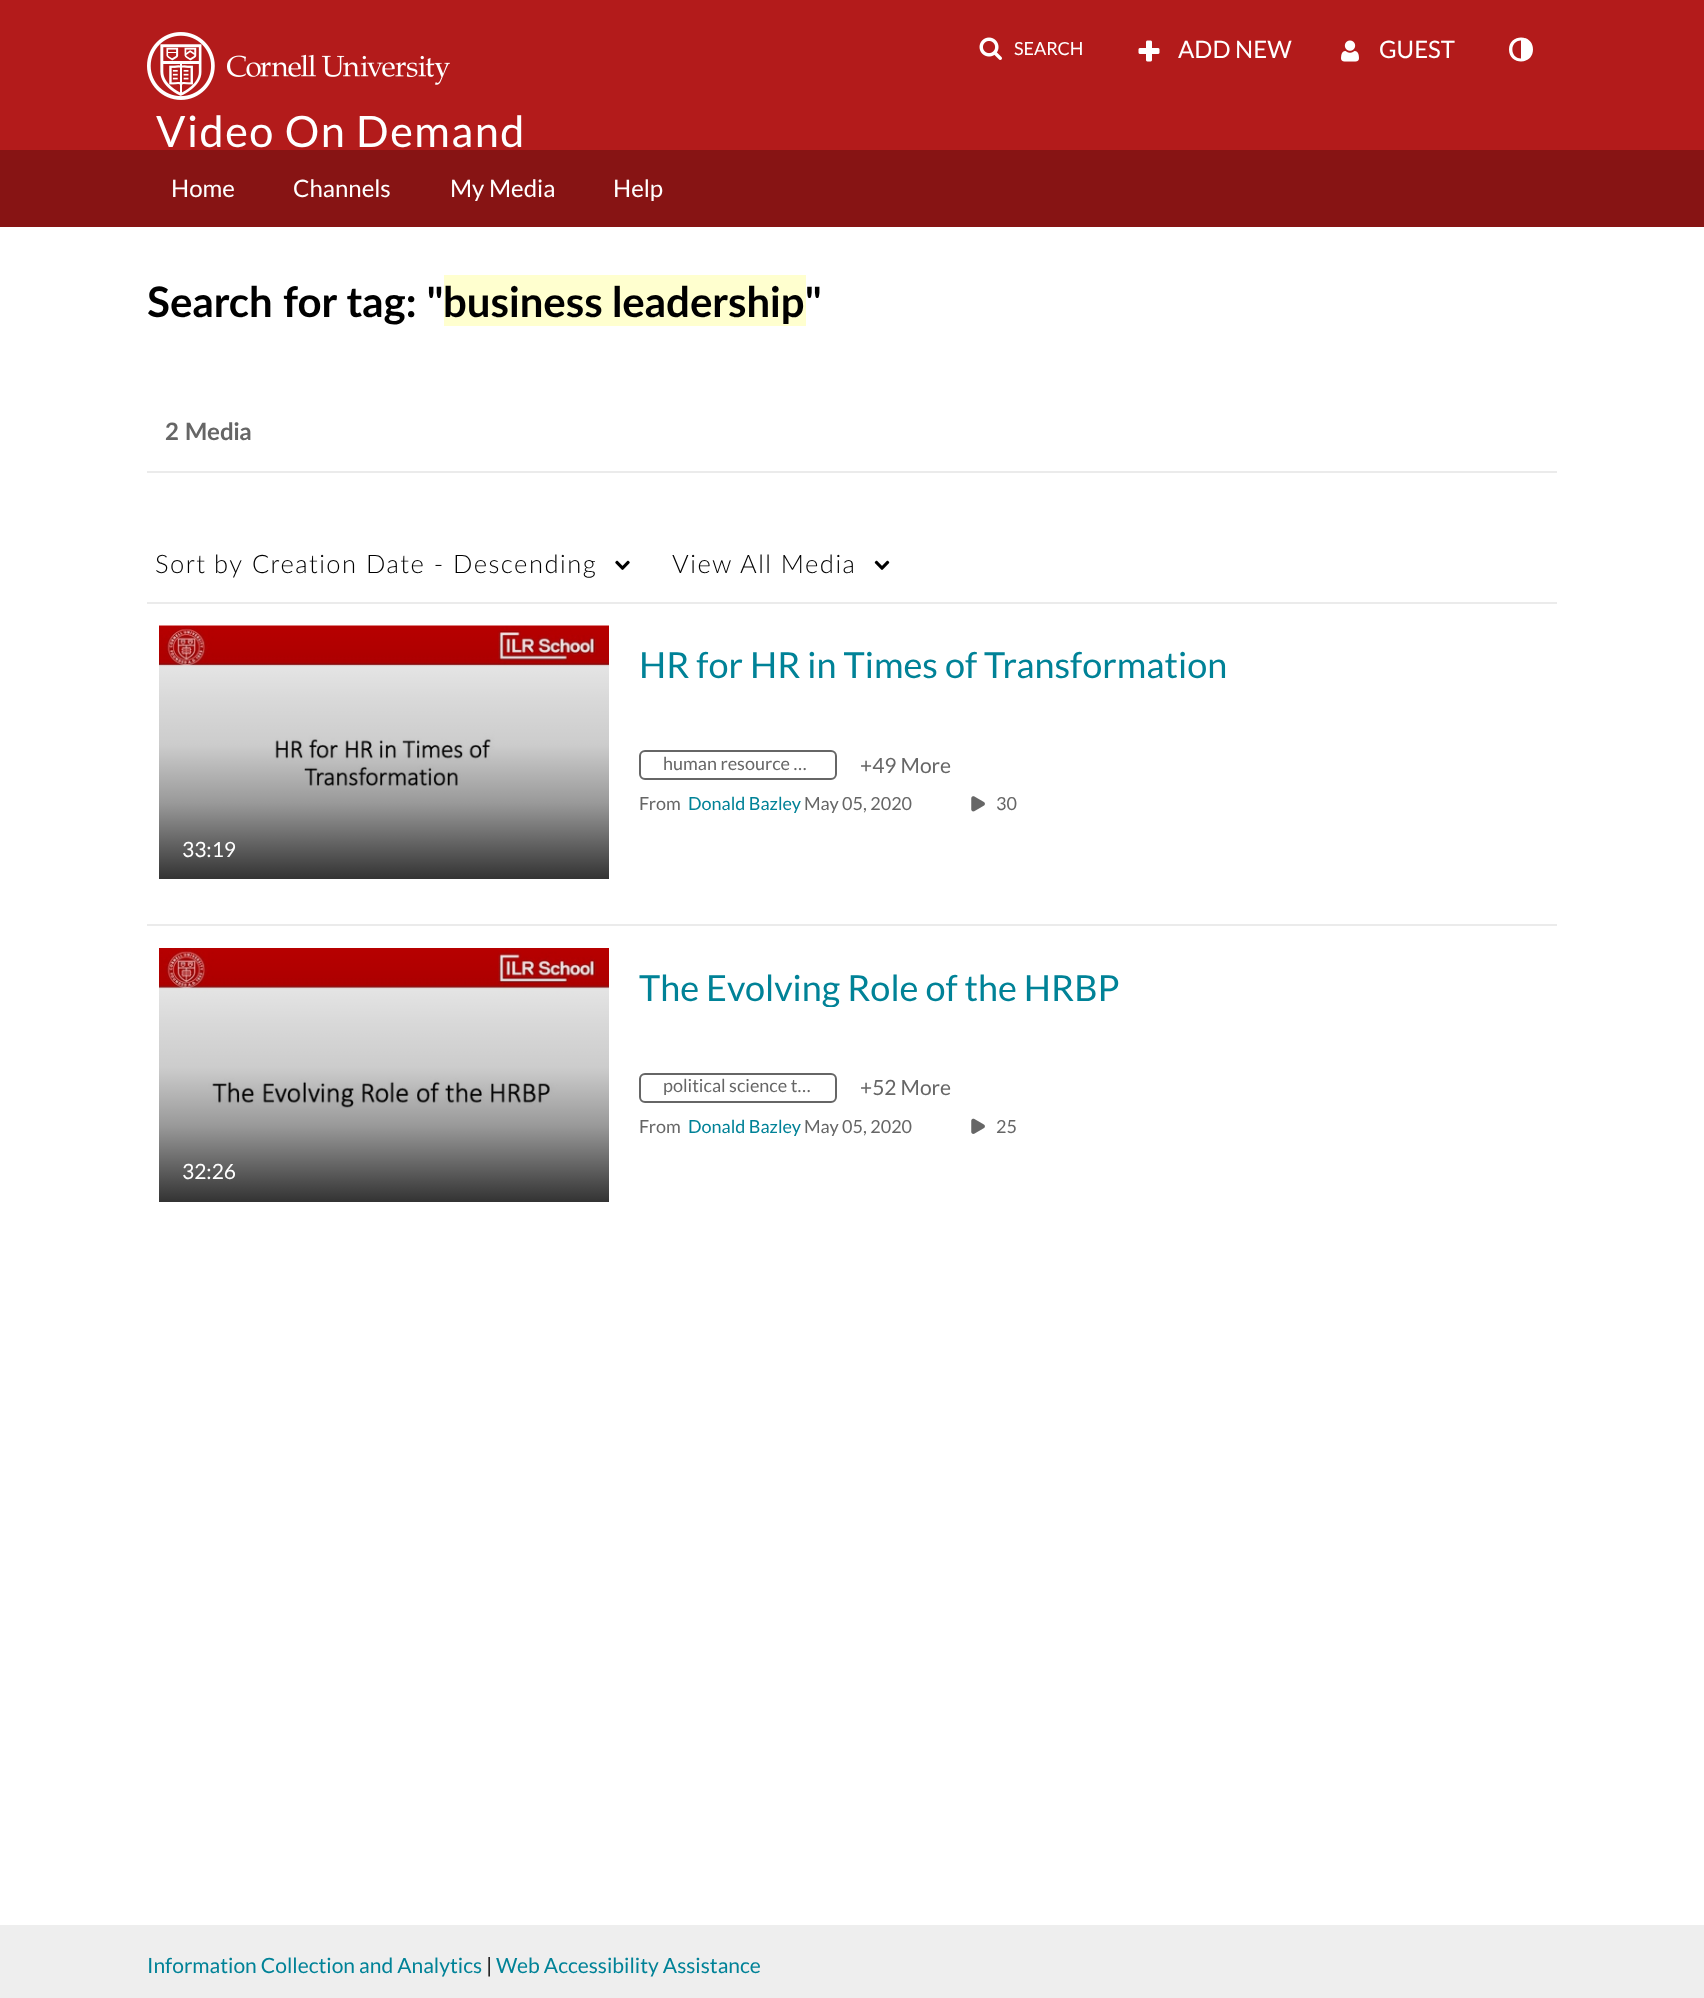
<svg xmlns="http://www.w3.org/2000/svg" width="1704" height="1998">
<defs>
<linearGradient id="g1" gradientUnits="userSpaceOnUse" x1="384" y1="879" x2="384" y2="626"><stop offset="0" stop-color="#000" stop-opacity="0.8"/><stop offset="0.3" stop-color="#000" stop-opacity="0.4"/><stop offset="0.53" stop-color="#000" stop-opacity="0.2"/><stop offset="0.71" stop-color="#000" stop-opacity="0.15"/><stop offset="1" stop-color="#000" stop-opacity="0.05"/></linearGradient>
<clipPath id="clip1"><rect x="639" y="966" width="480" height="41"/></clipPath>
<linearGradient id="g2" gradientUnits="userSpaceOnUse" x1="384" y1="1202" x2="384" y2="948"><stop offset="0" stop-color="#000" stop-opacity="0.8"/><stop offset="0.3" stop-color="#000" stop-opacity="0.4"/><stop offset="0.53" stop-color="#000" stop-opacity="0.2"/><stop offset="0.71" stop-color="#000" stop-opacity="0.15"/><stop offset="1" stop-color="#000" stop-opacity="0.05"/></linearGradient>
</defs>
<rect width="100%" height="100%" fill="#fff"/>
<rect width="1704" height="150" fill="#b31b1b"/>
<rect y="150" width="1704" height="77" fill="#871414"/>
<image x="979" y="37" width="23" height="23" href="media/1.png"/>
<text x="1014" y="55" style="font-family:Lato;font-size:18px;fill:#fff">SEARCH</text>
<image x="1138" y="40" width="22" height="22" href="media/2.png"/>
<text x="1178" y="58" style="font-family:Lato;font-size:24px;fill:#fff">ADD NEW</text>
<image x="1341" y="40" width="18" height="22" href="media/3.png"/>
<text x="1379" y="58" style="font-family:Lato;font-size:24px;fill:#fff">GUEST</text>
<path d="M1521 58.5v-18c-11.5 0-11.5 18 0 18zm12-9c0 16-24 16-24 0c0-16 24-16 24 0z" fill="#fff"/>
<image x="147" y="32" width="303" height="68" href="media/4.png"/>
<text x="156" y="147" style="font-family:Lato;font-size:43.25px;letter-spacing:1.5px;fill:#fff">Video On Demand</text>
<text x="171" y="197" style="font-family:Lato;font-size:24px;fill:#fff">Home</text>
<text x="293" y="197" style="font-family:Lato;font-size:24px;fill:#fff">Channels</text>
<text x="450" y="197" style="font-family:Lato;font-size:24px;fill:#fff">My Media</text>
<text x="613" y="197" style="font-family:Lato;font-size:24px;fill:#fff">Help</text>
<text x="147" y="317" style="font-family:Lato;font-size:42px;font-weight:bold;fill:#000">Search for tag: "</text>
<rect x="444" y="275" width="362" height="51" fill="#ffffcf"/>
<text x="443" y="317" word-spacing="-1" style="font-family:Lato;font-size:42px;font-weight:bold;fill:#000">business leadership</text>
<text x="805" y="317" style="font-family:Lato;font-size:42px;font-weight:bold;fill:#000">"</text>
<rect x="147" y="471" width="1410" height="2" fill="#ebebeb"/>
<text x="165" y="440" style="font-family:Lato;font-size:24px;font-weight:bold;fill:#666">2 Media</text>
<text x="155" y="573" word-spacing="-1" style="font-family:Lato;font-size:25.5px;font-weight:300;letter-spacing:1.5px;fill:#000">Sort by</text>
<text x="252" y="573" style="font-family:Lato;font-size:25.5px;font-weight:300;letter-spacing:1.5px;fill:#000">Creation Date - Descending</text>
<image x="615" y="560" width="15" height="10" href="media/5.png"/>
<text x="672" y="573" style="font-family:Lato;font-size:25.5px;font-weight:300;letter-spacing:1.5px;fill:#000">View</text>
<text x="740" y="573" style="font-family:Lato;font-size:25.5px;font-weight:300;letter-spacing:1.5px;fill:#000">All Media</text>
<image x="874" y="560" width="16" height="10" href="media/6.png"/>
<rect x="147" y="602" width="1410" height="2" fill="#ebebeb"/>
<text x="639" y="678" style="font-family:Lato;font-size:36px;fill:#008297">HR for HR in Times of Transformation</text>
<rect x="640" y="751" width="196" height="28" rx="5" fill="none" stroke="#666" stroke-width="2"/>
<text x="663" y="770" style="font-family:Lato;font-size:18px;fill:#666">human resource …</text>
<text x="860" y="773" style="font-family:Lato;font-size:21px;fill:#666">+49 More</text>
<text x="639" y="810" style="font-family:Lato;font-size:18px;fill:#666">From</text>
<text x="688" y="810" style="font-family:Lato;font-size:18px;fill:#008297">Donald Bazley</text>
<text x="804" y="810" style="font-family:Lato;font-size:18px;fill:#666">May 05, 2020</text>
<image x="971" y="796" width="14" height="16" href="media/7.png"/>
<text x="996" y="810" style="font-family:Lato;font-size:18px;fill:#666">30</text>
<image x="159" y="625" width="450" height="161" href="media/8.png"/>
<rect x="159" y="626" width="450" height="253" fill="url(#g1)"/>
<text x="182" y="857" style="font-family:Lato;font-size:21px;fill:#fff">33:19</text>
<rect x="147" y="924" width="1410" height="2" fill="#ebebeb"/>
<g clip-path="url(#clip1)">
<text x="639" y="1001" style="font-family:Lato;font-size:36px;fill:#008297">The Evolving Role of the HRBP</text>
</g>
<rect x="640" y="1074" width="196" height="28" rx="5" fill="none" stroke="#666" stroke-width="2"/>
<text x="663" y="1092" style="font-family:Lato;font-size:18px;fill:#666">political science t…</text>
<text x="860" y="1095" style="font-family:Lato;font-size:21px;fill:#666">+52 More</text>
<text x="639" y="1133" style="font-family:Lato;font-size:18px;fill:#666">From</text>
<text x="688" y="1133" style="font-family:Lato;font-size:18px;fill:#008297">Donald Bazley</text>
<text x="804" y="1133" style="font-family:Lato;font-size:18px;fill:#666">May 05, 2020</text>
<image x="971" y="1118" width="14" height="16" href="media/9.png"/>
<text x="996" y="1133" style="font-family:Lato;font-size:18px;fill:#666">25</text>
<image x="159" y="948" width="450" height="160" href="media/10.png"/>
<rect x="159" y="948" width="450" height="254" fill="url(#g2)"/>
<text x="182" y="1179" style="font-family:Lato;font-size:21px;fill:#fff">32:26</text>
<rect y="1925" width="1704" height="73" fill="#eee"/>
<text x="147" y="1973" style="font-family:Lato;font-size:21px;fill:#008297">Information Collection and Analytics</text>
<text x="486" y="1973" style="font-family:Lato;font-size:21px;fill:#000">|</text>
<text x="496" y="1973" style="font-family:Lato;font-size:21px;fill:#008297">Web Accessibility Assistance</text>
</svg>
